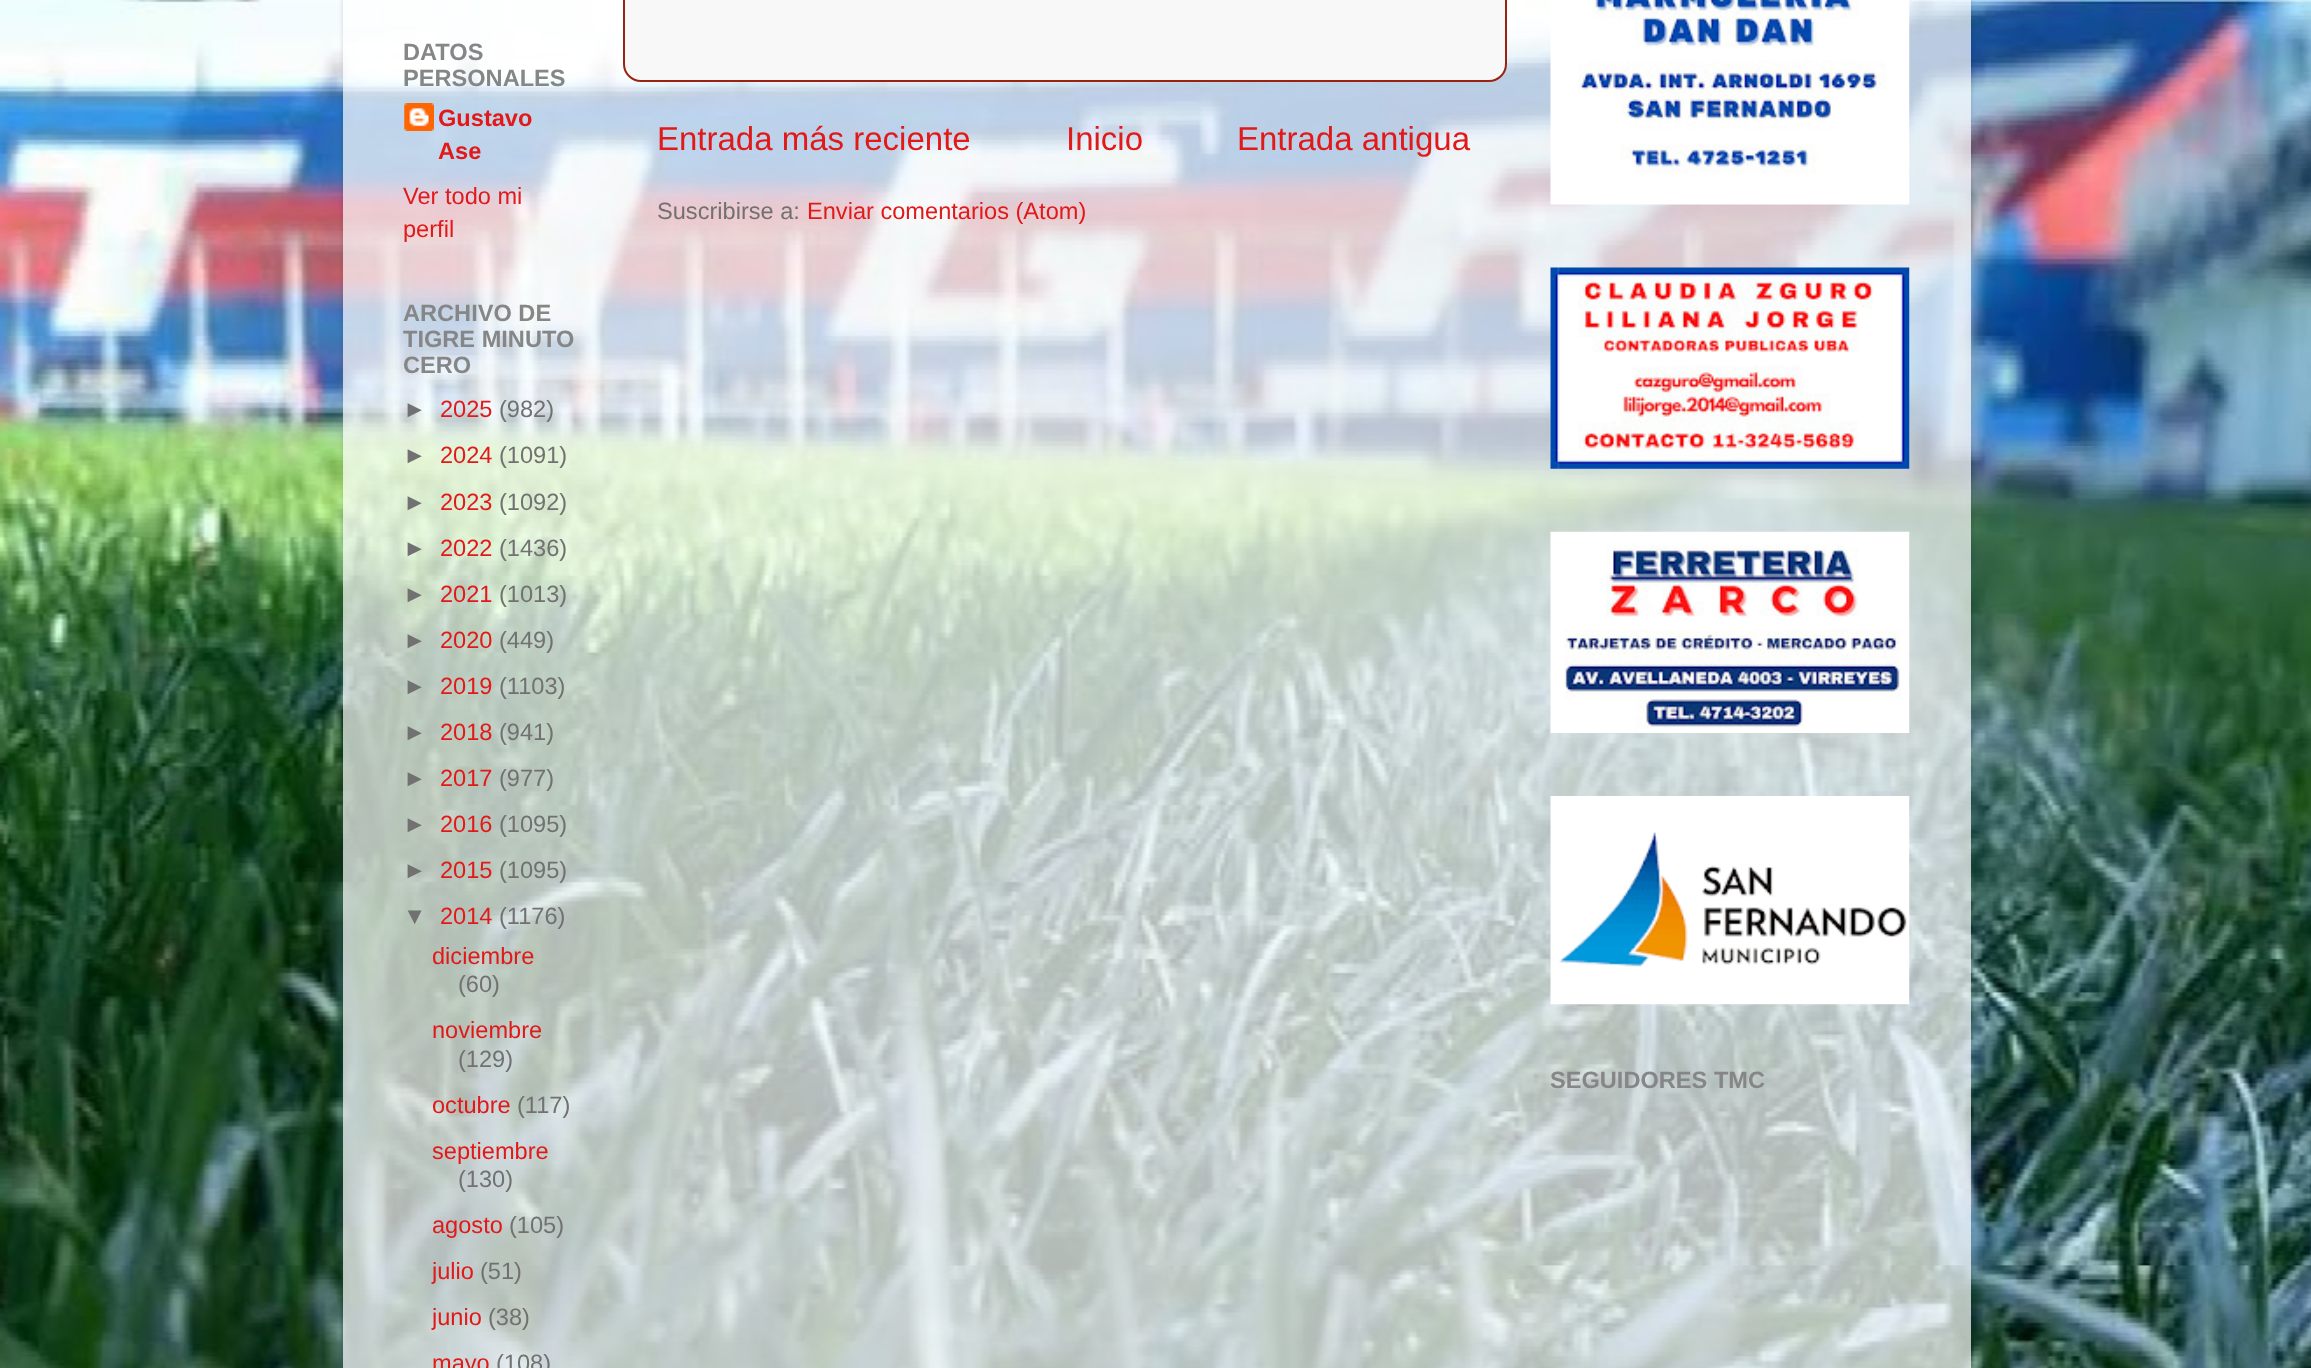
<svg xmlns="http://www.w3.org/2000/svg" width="2311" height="1368">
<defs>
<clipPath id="clip1"><path d="M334 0h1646v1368h-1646zm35-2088h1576c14.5 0 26 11.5 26 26v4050c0 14.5-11.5 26-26 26h-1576c-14.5 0-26-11.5-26-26v-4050c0-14.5 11.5-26 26-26z" clip-rule="evenodd"/></clipPath>
</defs>
<rect width="100%" height="100%" fill="#fff"/>
<image x="0" y="0" width="2311" height="1368" href="media/1.png"/>
<g clip-path="url(#clip1)">
<rect x="343" y="-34" width="1628" height="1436" rx="26" fill="#00000026" filter="blur(2.5px)"/>
</g>
<rect x="343" width="1628" height="1368" fill="#ffffffb3"/>
<text x="403" y="60" style="font-family:Liberation Sans;font-size:23.6px;font-weight:bold;fill:#868686">DATOS</text>
<text x="403" y="86" style="font-family:Liberation Sans;font-size:23.6px;font-weight:bold;fill:#868686">PERSONALES</text>
<image x="404" y="103" width="30" height="28" href="media/2.png"/>
<text x="438" y="126" style="font-family:Liberation Sans;font-size:23.6px;font-weight:bold;fill:#e11919">Gustavo</text>
<text x="438" y="159" style="font-family:Liberation Sans;font-size:23.6px;font-weight:bold;fill:#e11919">Ase</text>
<text x="403" y="204" style="font-family:Liberation Sans;font-size:23.6px;fill:#e11919">Ver todo mi</text>
<text x="403" y="237" style="font-family:Liberation Sans;font-size:23.6px;fill:#e11919">perfil</text>
<text x="403" y="321" style="font-family:Liberation Sans;font-size:23.6px;font-weight:bold;fill:#868686">ARCHIVO DE</text>
<text x="403" y="347" style="font-family:Liberation Sans;font-size:23.6px;font-weight:bold;fill:#868686">TIGRE MINUTO</text>
<text x="403" y="373" style="font-family:Liberation Sans;font-size:23.6px;font-weight:bold;fill:#868686">CERO</text>
<text x="403" y="417" style="font-family:Liberation Sans;font-size:23.6px;fill:#717171">►</text>
<text x="440" y="417" style="font-family:Liberation Sans;font-size:23.6px;fill:#e11919">2025</text>
<text x="499" y="417" style="font-family:Liberation Sans;font-size:23.6px;fill:#717171">(982)</text>
<text x="403" y="463" style="font-family:Liberation Sans;font-size:23.6px;fill:#717171">►</text>
<text x="440" y="463" style="font-family:Liberation Sans;font-size:23.6px;fill:#e11919">2024</text>
<text x="499" y="463" style="font-family:Liberation Sans;font-size:23.6px;fill:#717171">(1091)</text>
<text x="403" y="510" style="font-family:Liberation Sans;font-size:23.6px;fill:#717171">►</text>
<text x="440" y="510" style="font-family:Liberation Sans;font-size:23.6px;fill:#e11919">2023</text>
<text x="499" y="510" style="font-family:Liberation Sans;font-size:23.6px;fill:#717171">(1092)</text>
<text x="403" y="556" style="font-family:Liberation Sans;font-size:23.6px;fill:#717171">►</text>
<text x="440" y="556" style="font-family:Liberation Sans;font-size:23.6px;fill:#e11919">2022</text>
<text x="499" y="556" style="font-family:Liberation Sans;font-size:23.6px;fill:#717171">(1436)</text>
<text x="403" y="602" style="font-family:Liberation Sans;font-size:23.6px;fill:#717171">►</text>
<text x="440" y="602" style="font-family:Liberation Sans;font-size:23.6px;fill:#e11919">2021</text>
<text x="499" y="602" style="font-family:Liberation Sans;font-size:23.6px;fill:#717171">(1013)</text>
<text x="403" y="648" style="font-family:Liberation Sans;font-size:23.6px;fill:#717171">►</text>
<text x="440" y="648" style="font-family:Liberation Sans;font-size:23.6px;fill:#e11919">2020</text>
<text x="499" y="648" style="font-family:Liberation Sans;font-size:23.6px;fill:#717171">(449)</text>
<text x="403" y="694" style="font-family:Liberation Sans;font-size:23.6px;fill:#717171">►</text>
<text x="440" y="694" style="font-family:Liberation Sans;font-size:23.6px;fill:#e11919">2019</text>
<text x="499" y="694" style="font-family:Liberation Sans;font-size:23.6px;fill:#717171">(1103)</text>
<text x="403" y="740" style="font-family:Liberation Sans;font-size:23.6px;fill:#717171">►</text>
<text x="440" y="740" style="font-family:Liberation Sans;font-size:23.6px;fill:#e11919">2018</text>
<text x="499" y="740" style="font-family:Liberation Sans;font-size:23.6px;fill:#717171">(941)</text>
<text x="403" y="786" style="font-family:Liberation Sans;font-size:23.6px;fill:#717171">►</text>
<text x="440" y="786" style="font-family:Liberation Sans;font-size:23.6px;fill:#e11919">2017</text>
<text x="499" y="786" style="font-family:Liberation Sans;font-size:23.6px;fill:#717171">(977)</text>
<text x="403" y="832" style="font-family:Liberation Sans;font-size:23.6px;fill:#717171">►</text>
<text x="440" y="832" style="font-family:Liberation Sans;font-size:23.6px;fill:#e11919">2016</text>
<text x="499" y="832" style="font-family:Liberation Sans;font-size:23.6px;fill:#717171">(1095)</text>
<text x="403" y="878" style="font-family:Liberation Sans;font-size:23.6px;fill:#717171">►</text>
<text x="440" y="878" style="font-family:Liberation Sans;font-size:23.6px;fill:#e11919">2015</text>
<text x="499" y="878" style="font-family:Liberation Sans;font-size:23.6px;fill:#717171">(1095)</text>
<text x="403" y="924" style="font-family:Liberation Sans;font-size:23.6px;fill:#717171">▼</text>
<text x="440" y="924" style="font-family:Liberation Sans;font-size:23.6px;fill:#e11919">2014</text>
<text x="499" y="924" style="font-family:Liberation Sans;font-size:23.6px;fill:#717171">(1176)</text>
<text x="432" y="964" style="font-family:Liberation Sans;font-size:23.6px;fill:#e11919">diciembre</text>
<text x="458" y="992" style="font-family:Liberation Sans;font-size:23.6px;fill:#717171">(60)</text>
<text x="432" y="1038" style="font-family:Liberation Sans;font-size:23.6px;fill:#e11919">noviembre</text>
<text x="458" y="1067" style="font-family:Liberation Sans;font-size:23.6px;fill:#717171">(129)</text>
<text x="432" y="1113" style="font-family:Liberation Sans;font-size:23.6px;fill:#e11919">octubre</text>
<text x="517" y="1113" style="font-family:Liberation Sans;font-size:23.6px;fill:#717171">(117)</text>
<text x="432" y="1159" style="font-family:Liberation Sans;font-size:23.6px;fill:#e11919">septiembre</text>
<text x="458" y="1187" style="font-family:Liberation Sans;font-size:23.6px;fill:#717171">(130)</text>
<text x="432" y="1233" style="font-family:Liberation Sans;font-size:23.6px;fill:#e11919">agosto</text>
<text x="509" y="1233" style="font-family:Liberation Sans;font-size:23.6px;fill:#717171">(105)</text>
<text x="432" y="1279" style="font-family:Liberation Sans;font-size:23.6px;fill:#e11919">julio</text>
<text x="480" y="1279" style="font-family:Liberation Sans;font-size:23.6px;fill:#717171">(51)</text>
<text x="432" y="1325" style="font-family:Liberation Sans;font-size:23.6px;fill:#e11919">junio</text>
<text x="488" y="1325" style="font-family:Liberation Sans;font-size:23.6px;fill:#717171">(38)</text>
<text x="432" y="1371" style="font-family:Liberation Sans;font-size:23.6px;fill:#e11919">mayo</text>
<text x="496" y="1371" style="font-family:Liberation Sans;font-size:23.6px;fill:#717171">(108)</text>
<rect x="624" y="-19" width="882" height="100" rx="17" fill="#f8f8f8" stroke="#921" stroke-width="2"/>
<text x="657" y="150" style="font-family:Liberation Sans;font-size:33px;fill:#e11919">Entrada más reciente</text>
<text x="1066" y="150" style="font-family:Liberation Sans;font-size:33px;fill:#e11919">Inicio</text>
<text x="1237" y="150" style="font-family:Liberation Sans;font-size:33px;fill:#e11919">Entrada antigua</text>
<text x="657" y="219" style="font-family:Liberation Sans;font-size:23.6px;fill:#717171">Suscribirse a:</text>
<text x="807" y="219" style="font-family:Liberation Sans;font-size:23.6px;fill:#e11919">Enviar comentarios (Atom)</text>
<image x="1550" y="0" width="360" height="205" href="media/3.png"/>
<image x="1550" y="267" width="360" height="202" href="media/4.png"/>
<image x="1550" y="531" width="360" height="202" href="media/5.png"/>
<image x="1550" y="796" width="360" height="209" href="media/6.png"/>
<text x="1550" y="1088" style="font-family:Liberation Sans;font-size:23.6px;font-weight:bold;fill:#868686">SEGUIDORES TMC</text>
</svg>
